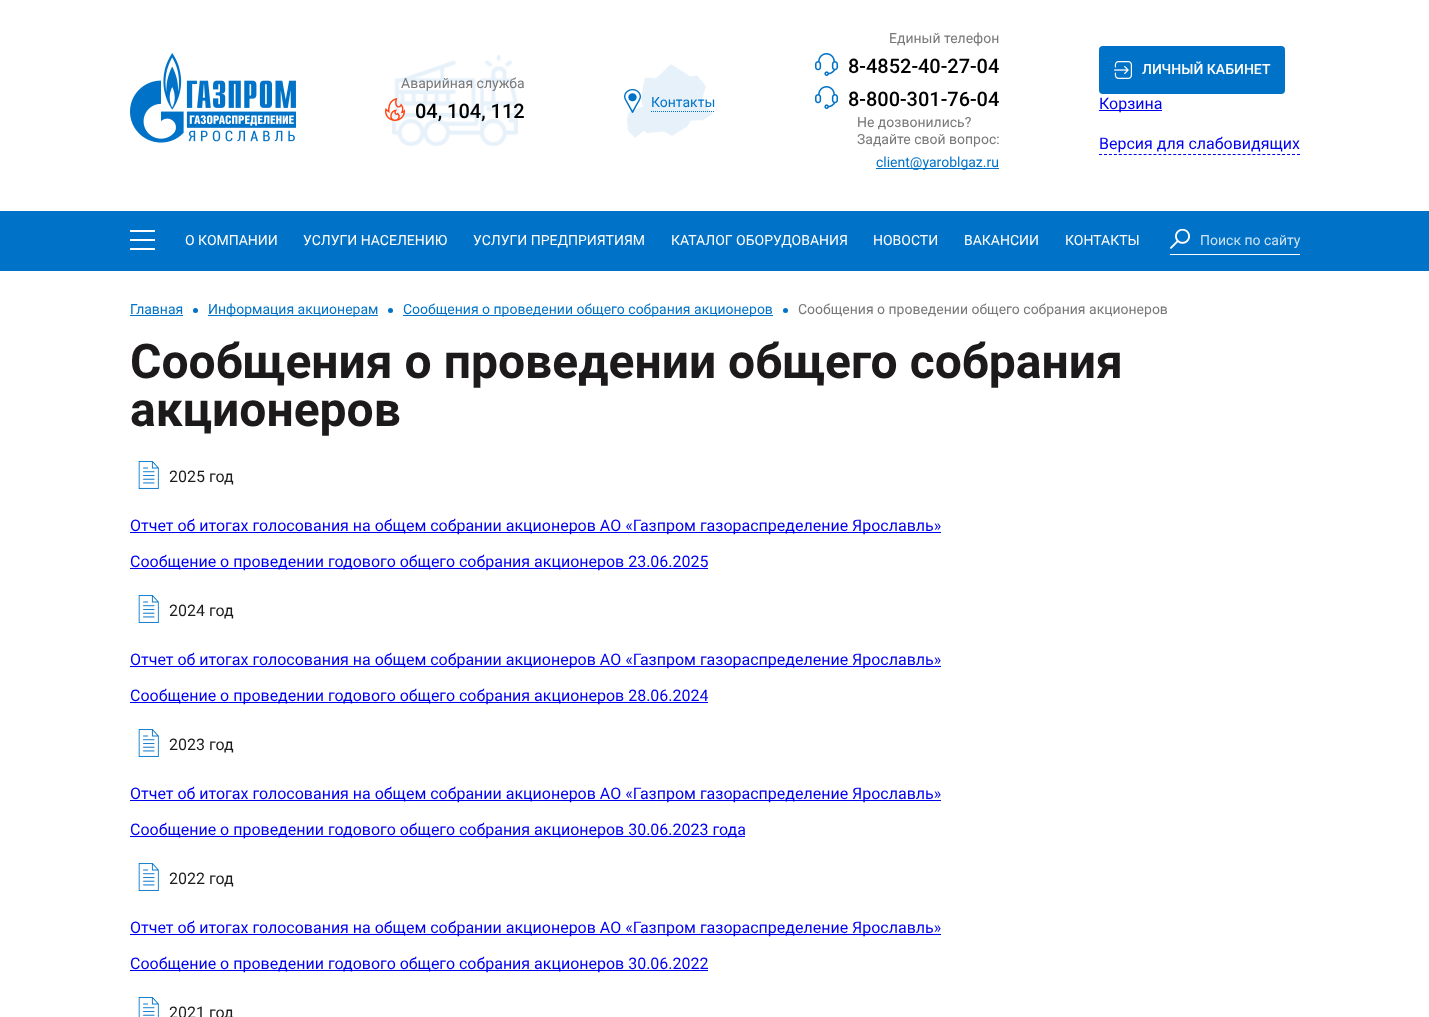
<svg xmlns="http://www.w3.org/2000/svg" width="1429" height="1017">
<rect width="100%" height="100%" fill="#fff"/>
<image x="130" y="53" width="166" height="90" href="media/1.png"/>
<image x="392" y="55" width="126" height="91" href="media/2.png"/>
<text x="401" y="88" style="font-family:Roboto;font-size:14px;fill:#777">Аварийная служба</text>
<image x="385" y="98" width="20" height="23" href="media/3.png"/>
<text x="415" y="118" style="font-family:Roboto;font-size:20px;font-weight:500;fill:#000">04, 104, 112</text>
<image x="627" y="64" width="86" height="74" href="media/4.png"/>
<image x="624" y="89" width="17" height="24" href="media/5.png"/>
<path d="M651 111.5h64" fill="none" stroke="#0072c7" stroke-dasharray="1 1"/>
<text x="651" y="107" style="font-family:Roboto;font-size:14px;fill:#0072c7">Контакты</text>
<text x="889" y="43" style="font-family:Roboto;font-size:14px;fill:#777">Единый телефон</text>
<image x="815" y="53" width="23" height="23" href="media/6.png"/>
<text x="848" y="73" style="font-family:Roboto;font-size:20px;font-weight:500;fill:#000">8-4852-40-27-04</text>
<image x="815" y="86" width="23" height="23" href="media/6.png"/>
<text x="848" y="106" style="font-family:Roboto;font-size:20px;font-weight:500;fill:#000">8-800-301-76-04</text>
<text x="857" y="127" style="font-family:Roboto;font-size:14px;fill:#777">Не дозвонились?</text>
<text x="857" y="144" style="font-family:Roboto;font-size:14px;fill:#777">Задайте свой вопрос:</text>
<rect x="876" y="168" width="123" height="1" fill="#0072c7"/>
<text x="876" y="167" style="font-family:Roboto;font-size:14px;fill:#0072c7">client@yaroblgaz.ru</text>
<rect x="1099" y="46" width="186" height="48" rx="4" fill="#0072c7"/>
<image x="1114" y="61" width="18" height="18" href="media/7.png"/>
<text x="1142" y="74" style="font-family:Roboto;font-size:14px;font-weight:500;fill:#fff">ЛИЧНЫЙ КАБИНЕТ</text>
<rect x="1099" y="110" width="63" height="1" fill="#00e"/>
<text x="1099" y="109" style="font-family:Roboto;font-size:16px;fill:#00e">Корзина</text>
<path d="M1099 154.5h201" fill="none" stroke="#00e" stroke-dasharray="3 1.95"/>
<text x="1099" y="149" style="font-family:Roboto;font-size:16px;fill:#00e">Версия для слабовидящих</text>
<rect y="211" width="1429" height="60" fill="#0072c7"/>
<rect x="130" y="230" width="25" height="2" fill="#fff"/>
<rect x="130" y="239" width="25" height="2" fill="#fff"/>
<rect x="130" y="248" width="25" height="2" fill="#fff"/>
<text x="185" y="245" style="font-family:Roboto;font-size:14px;fill:#fff">О КОМПАНИИ</text>
<text x="303" y="245" style="font-family:Roboto;font-size:14px;fill:#fff">УСЛУГИ НАСЕЛЕНИЮ</text>
<text x="473" y="245" style="font-family:Roboto;font-size:14px;fill:#fff">УСЛУГИ ПРЕДПРИЯТИЯМ</text>
<text x="671" y="245" style="font-family:Roboto;font-size:14px;fill:#fff">КАТАЛОГ ОБОРУДОВАНИЯ</text>
<text x="873" y="245" style="font-family:Roboto;font-size:14px;fill:#fff">НОВОСТИ</text>
<text x="964" y="245" style="font-family:Roboto;font-size:14px;fill:#fff">ВАКАНСИИ</text>
<text x="1065" y="245" style="font-family:Roboto;font-size:14px;fill:#fff">КОНТАКТЫ</text>
<image x="1170" y="229" width="20" height="20" href="media/8.png"/>
<rect x="1170" y="254" width="130" height="1" fill="#fff"/>
<text x="1200" y="245" style="font-family:Roboto;font-size:14px;fill:#cce3f4">Поиск по сайту</text>
<text x="130" y="314" style="font-family:Roboto;font-size:14px;fill:#0072c7">Главная</text>
<rect x="130" y="315" width="53" height="1" fill="#0072c7"/>
<circle cx="195.5" cy="310.5" r="2.5" fill="#0072c7"/>
<rect x="208" y="315" width="170" height="1" fill="#0072c7"/>
<text x="208" y="314" style="font-family:Roboto;font-size:14px;fill:#0072c7">Информация акционерам</text>
<circle cx="390.5" cy="310.5" r="2.5" fill="#0072c7"/>
<rect x="403" y="315" width="370" height="1" fill="#0072c7"/>
<text x="403" y="314" style="font-family:Roboto;font-size:14px;fill:#0072c7">Сообщения о проведении общего собрания акционеров</text>
<circle cx="785.5" cy="310.5" r="2.5" fill="#0072c7"/>
<text x="798" y="314" style="font-family:Roboto;font-size:14px;fill:#777">Сообщения о проведении общего собрания акционеров</text>
<text x="130" y="378" style="font-family:Roboto;font-size:48px;font-weight:bold;fill:#1c1a1a">Сообщения о проведении общего собрания</text>
<text x="130" y="426" style="font-family:Roboto;font-size:48px;font-weight:bold;fill:#1c1a1a">акционеров</text>
<image x="138" y="461" width="21" height="28" href="media/9.png"/>
<text x="169" y="482" style="font-family:Roboto;font-size:16px;fill:#1c1a1a">2025 год</text>
<rect x="130" y="532" width="811" height="1" fill="#00e"/>
<text x="130" y="531" style="font-family:Roboto;font-size:16px;fill:#00e">Отчет об итогах голосования на общем собрании акционеров АО «Газпром газораспределение Ярославль»</text>
<rect x="130" y="568" width="578" height="1" fill="#00e"/>
<text x="130" y="567" style="font-family:Roboto;font-size:16px;fill:#00e">Сообщение о проведении годового общего собрания акционеров 23.06.2025</text>
<image x="138" y="595" width="21" height="28" href="media/9.png"/>
<text x="169" y="616" style="font-family:Roboto;font-size:16px;fill:#1c1a1a">2024 год</text>
<rect x="130" y="666" width="811" height="1" fill="#00e"/>
<text x="130" y="665" style="font-family:Roboto;font-size:16px;fill:#00e">Отчет об итогах голосования на общем собрании акционеров АО «Газпром газораспределение Ярославль»</text>
<rect x="130" y="702" width="578" height="1" fill="#00e"/>
<text x="130" y="701" style="font-family:Roboto;font-size:16px;fill:#00e">Сообщение о проведении годового общего собрания акционеров 28.06.2024</text>
<image x="138" y="729" width="21" height="28" href="media/9.png"/>
<text x="169" y="750" style="font-family:Roboto;font-size:16px;fill:#1c1a1a">2023 год</text>
<rect x="130" y="800" width="811" height="1" fill="#00e"/>
<text x="130" y="799" style="font-family:Roboto;font-size:16px;fill:#00e">Отчет об итогах голосования на общем собрании акционеров АО «Газпром газораспределение Ярославль»</text>
<rect x="130" y="836" width="615" height="1" fill="#00e"/>
<text x="130" y="835" style="font-family:Roboto;font-size:16px;fill:#00e">Сообщение о проведении годового общего собрания акционеров 30.06.2023 года</text>
<image x="138" y="863" width="21" height="28" href="media/9.png"/>
<text x="169" y="884" style="font-family:Roboto;font-size:16px;fill:#1c1a1a">2022 год</text>
<rect x="130" y="934" width="811" height="1" fill="#00e"/>
<text x="130" y="933" style="font-family:Roboto;font-size:16px;fill:#00e">Отчет об итогах голосования на общем собрании акционеров АО «Газпром газораспределение Ярославль»</text>
<rect x="130" y="970" width="578" height="1" fill="#00e"/>
<text x="130" y="969" style="font-family:Roboto;font-size:16px;fill:#00e">Сообщение о проведении годового общего собрания акционеров 30.06.2022</text>
<image x="138" y="997" width="21" height="20" href="media/10.png"/>
<text x="169" y="1018" style="font-family:Roboto;font-size:16px;fill:#1c1a1a">2021 год</text>
</svg>
